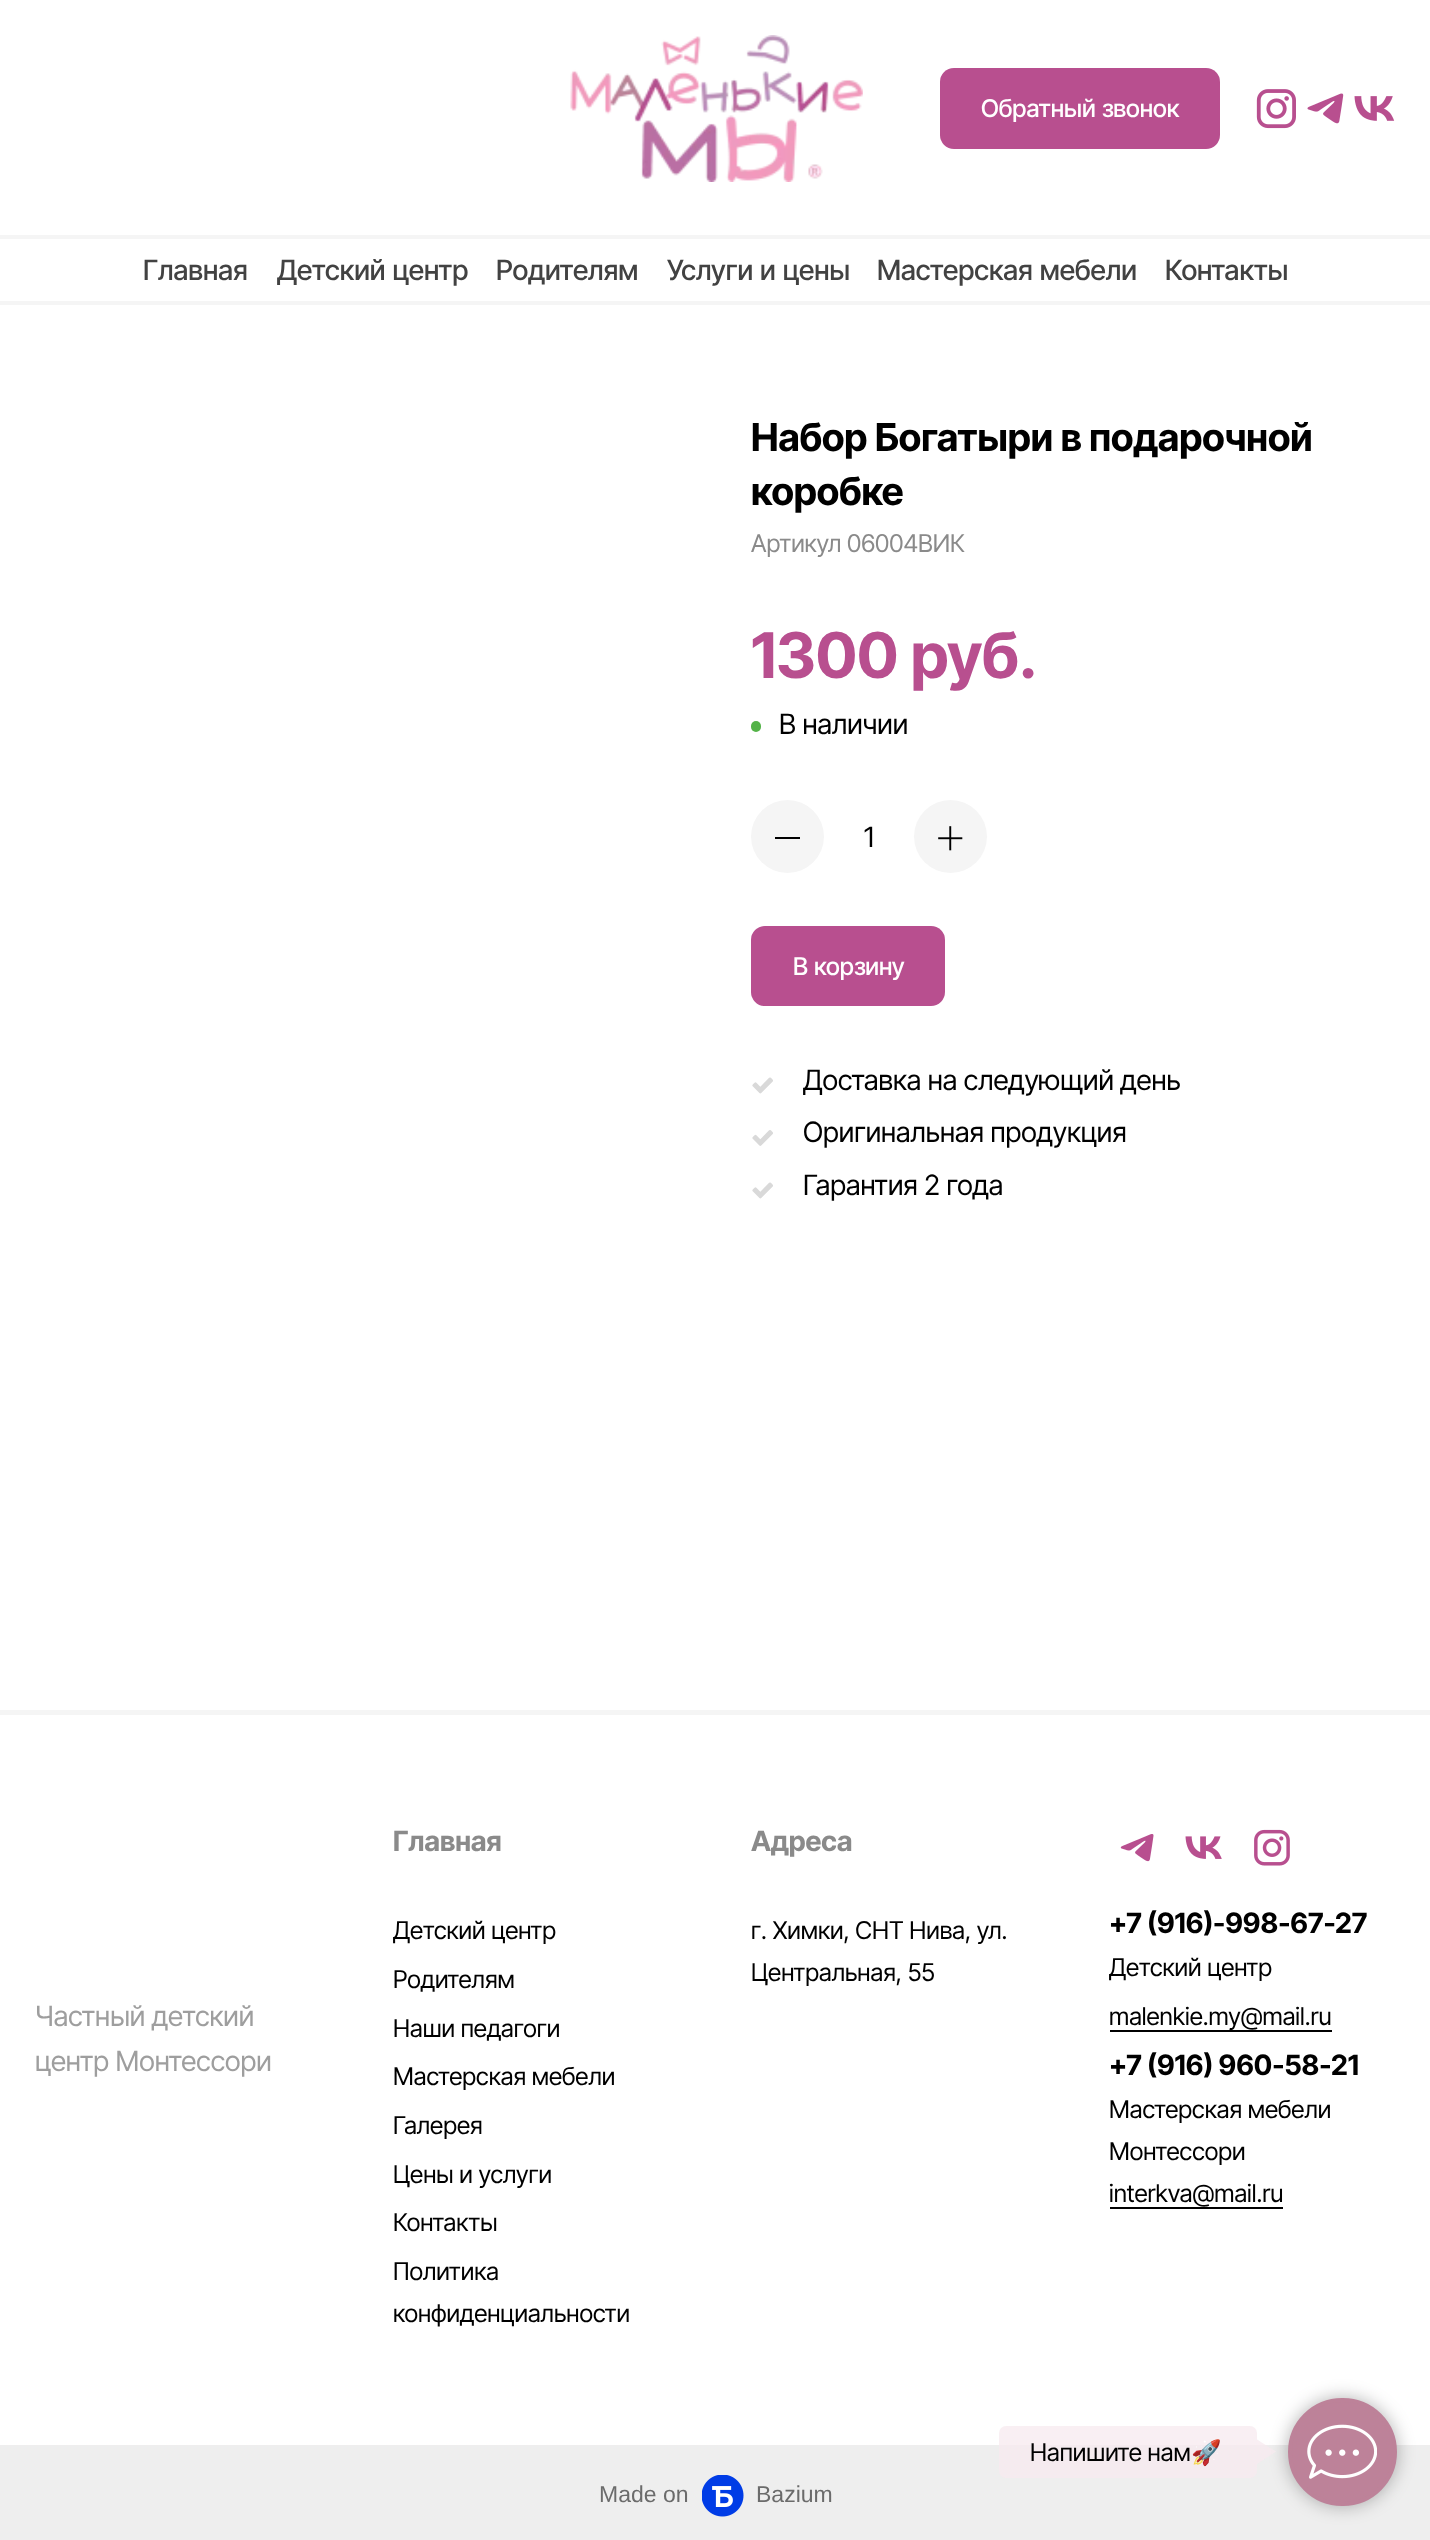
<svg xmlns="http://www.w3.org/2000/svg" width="1430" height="2540">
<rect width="100%" height="100%" fill="#fff"/>
<image x="570" y="35" width="293" height="147" href="media/1.png"/>
<rect x="940" y="68" width="280" height="81" rx="14" fill="#b84f8f"/>
<text x="981" y="117" style="font-family:Inter Tight;font-size:24.5px;font-weight:500;fill:#fff">Обратный звонок</text>
<image x="1256" y="89" width="40" height="40" href="media/2.png"/>
<image x="1307" y="93" width="37" height="31" href="media/3.png"/>
<image x="1354" y="96" width="41" height="25" href="media/4.png"/>
<rect y="235" width="1430" height="4" fill="#f5f5f5"/>
<rect y="301" width="1430" height="4" fill="#f5f5f5"/>
<text x="143" y="280" style="font-family:Inter Tight;font-size:28px;font-weight:500;fill:#424242">Главная</text>
<text x="277" y="280" style="font-family:Inter Tight;font-size:28px;font-weight:500;fill:#424242">Детский центр</text>
<text x="496" y="280" style="font-family:Inter Tight;font-size:28px;font-weight:500;fill:#424242">Родителям</text>
<text x="667" y="280" style="font-family:Inter Tight;font-size:28px;font-weight:500;fill:#424242">Услуги и цены</text>
<text x="877" y="280" style="font-family:Inter Tight;font-size:28px;font-weight:500;fill:#424242">Мастерская мебели</text>
<text x="1165" y="280" style="font-family:Inter Tight;font-size:28px;font-weight:500;fill:#424242">Контакты</text>
<text x="751" y="451" style="font-family:Inter Tight;font-size:38.5px;font-weight:bold;fill:#000">Набор Богатыри в подарочной</text>
<text x="751" y="505" style="font-family:Inter Tight;font-size:38.5px;font-weight:bold;fill:#000">коробке</text>
<text x="751" y="552" style="font-family:Inter Tight;font-size:24.5px;fill:#8a8a8a">Артикул</text>
<text x="847" y="552" style="font-family:Inter Tight;font-size:24.5px;fill:#8a8a8a">06004ВИК</text>
<text x="751" y="678" style="font-family:Inter Tight;font-size:63px;font-weight:bold;fill:#b84f8f">1300 руб.</text>
<rect x="751" y="721" width="10" height="11" rx="5" fill="#54b348"/>
<text x="779" y="734" style="font-family:Inter Tight;font-size:28px;fill:#000">В наличии</text>
<circle cx="787.5" cy="836.5" r="36.5" fill="#f5f5f5"/>
<rect x="775" y="837" width="25" height="2" fill="#000"/>
<text x="864" y="847" style="font-family:Inter Tight;font-size:28px;fill:#000">1</text>
<circle cx="950.5" cy="836.5" r="36.5" fill="#f5f5f5"/>
<image x="938" y="826" width="25" height="25" href="media/5.png"/>
<rect x="751" y="926" width="194" height="80" rx="14" fill="#b84f8f"/>
<text x="793" y="975" style="font-family:Inter Tight;font-size:24.5px;font-weight:500;fill:#fff">В корзину</text>
<image x="752" y="1077" width="21" height="17" href="media/6.png"/>
<text x="803" y="1090" style="font-family:Inter Tight;font-size:28px;fill:#000">Доставка на следующий день</text>
<image x="752" y="1130" width="21" height="16" href="media/7.png"/>
<text x="803" y="1142" style="font-family:Inter Tight;font-size:28px;fill:#000">Оригинальная продукция</text>
<image x="752" y="1182" width="21" height="17" href="media/6.png"/>
<text x="803" y="1195" style="font-family:Inter Tight;font-size:28px;fill:#000">Гарантия 2 года</text>
<rect y="1710" width="1430" height="5" fill="#f5f5f5"/>
<text x="35" y="2026" style="font-family:Inter Tight;font-size:28px;fill:#9e9e9e">Частный детский</text>
<text x="35" y="2071" style="font-family:Inter Tight;font-size:28px;fill:#9e9e9e">центр Монтессори</text>
<text x="393" y="1851" style="font-family:Inter Tight;font-size:28px;font-weight:bold;fill:#8a8a8a">Главная</text>
<text x="393" y="1939" style="font-family:Inter Tight;font-size:24.5px;fill:#000">Детский центр</text>
<text x="393" y="1988" style="font-family:Inter Tight;font-size:24.5px;fill:#000">Родителям</text>
<text x="393" y="2037" style="font-family:Inter Tight;font-size:24.5px;fill:#000">Наши педагоги</text>
<text x="393" y="2085" style="font-family:Inter Tight;font-size:24.5px;fill:#000">Мастерская мебели</text>
<text x="393" y="2134" style="font-family:Inter Tight;font-size:24.5px;fill:#000">Галерея</text>
<text x="393" y="2183" style="font-family:Inter Tight;font-size:24.5px;fill:#000">Цены и услуги</text>
<text x="393" y="2231" style="font-family:Inter Tight;font-size:24.5px;fill:#000">Контакты</text>
<text x="393" y="2280" style="font-family:Inter Tight;font-size:24.5px;fill:#000">Политика</text>
<text x="393" y="2322" style="font-family:Inter Tight;font-size:24.5px;fill:#000">конфиденциальности</text>
<text x="751" y="1851" style="font-family:Inter Tight;font-size:28px;font-weight:bold;fill:#8a8a8a">Адреса</text>
<text x="751" y="1939" style="font-family:Inter Tight;font-size:24.5px;fill:#000">г. Химки, СНТ Нива, ул.</text>
<text x="751" y="1981" style="font-family:Inter Tight;font-size:24.5px;fill:#000">Центральная, 55</text>
<image x="1120" y="1834" width="34" height="28" href="media/8.png"/>
<image x="1185" y="1836" width="37" height="23" href="media/9.png"/>
<image x="1254" y="1829" width="36" height="37" href="media/10.png"/>
<text x="1109" y="1933" style="font-family:Inter Tight;font-size:28px;font-weight:bold;fill:#000">+7 (916)-998-67-27</text>
<text x="1109" y="1976" style="font-family:Inter Tight;font-size:24.5px;fill:#000">Детский центр</text>
<text x="1109" y="2025" style="font-family:Inter Tight;font-size:24.5px;fill:#000">malenkie.my@mail.ru</text>
<rect x="1110" y="2030" width="222" height="2" fill="#000"/>
<text x="1109" y="2075" style="font-family:Inter Tight;font-size:28px;font-weight:bold;fill:#000">+7 (916) 960-58-21</text>
<text x="1109" y="2118" style="font-family:Inter Tight;font-size:24.5px;fill:#000">Мастерская мебели</text>
<text x="1109" y="2160" style="font-family:Inter Tight;font-size:24.5px;fill:#000">Монтессори</text>
<text x="1109" y="2202" style="font-family:Inter Tight;font-size:24.5px;fill:#000">interkva@mail.ru</text>
<rect x="1110" y="2207" width="173" height="2" fill="#000"/>
<rect y="2445" width="1430" height="95" fill="#eee"/>
<rect x="999" y="2426" width="258" height="52" rx="7" fill="#f7eaefbd"/>
<text x="1030" y="2461" style="font-family:Inter Tight;font-size:24.5px;fill:#000">Напишите нам</text>
<text x="1191" y="2461" style="font-family:Noto Color Emoji;font-size:24.5px;fill:#000">🚀</text>
<rect x="1288" y="2398" width="109" height="108" rx="54" fill="#0000004d" filter="blur(9px)"/>
<path d="M1257 2464v-24.5l19 12z" fill="#f7eaefbd"/>
<rect x="1290" y="2400" width="105" height="104" rx="52" fill="#bd8299" stroke="#bd8299" stroke-width="4"/>
<image x="1307" y="2424" width="70" height="55" href="media/11.png"/>
<text x="599" y="2502" style="font-family:Liberation Sans;font-size:23px;fill:#6b6b6b">Made on</text>
<image x="702" y="2475" width="42" height="42" href="media/12.png"/>
<text x="756" y="2502" style="font-family:Liberation Sans;font-size:23px;fill:#6b6b6b">Bazium</text>
</svg>
